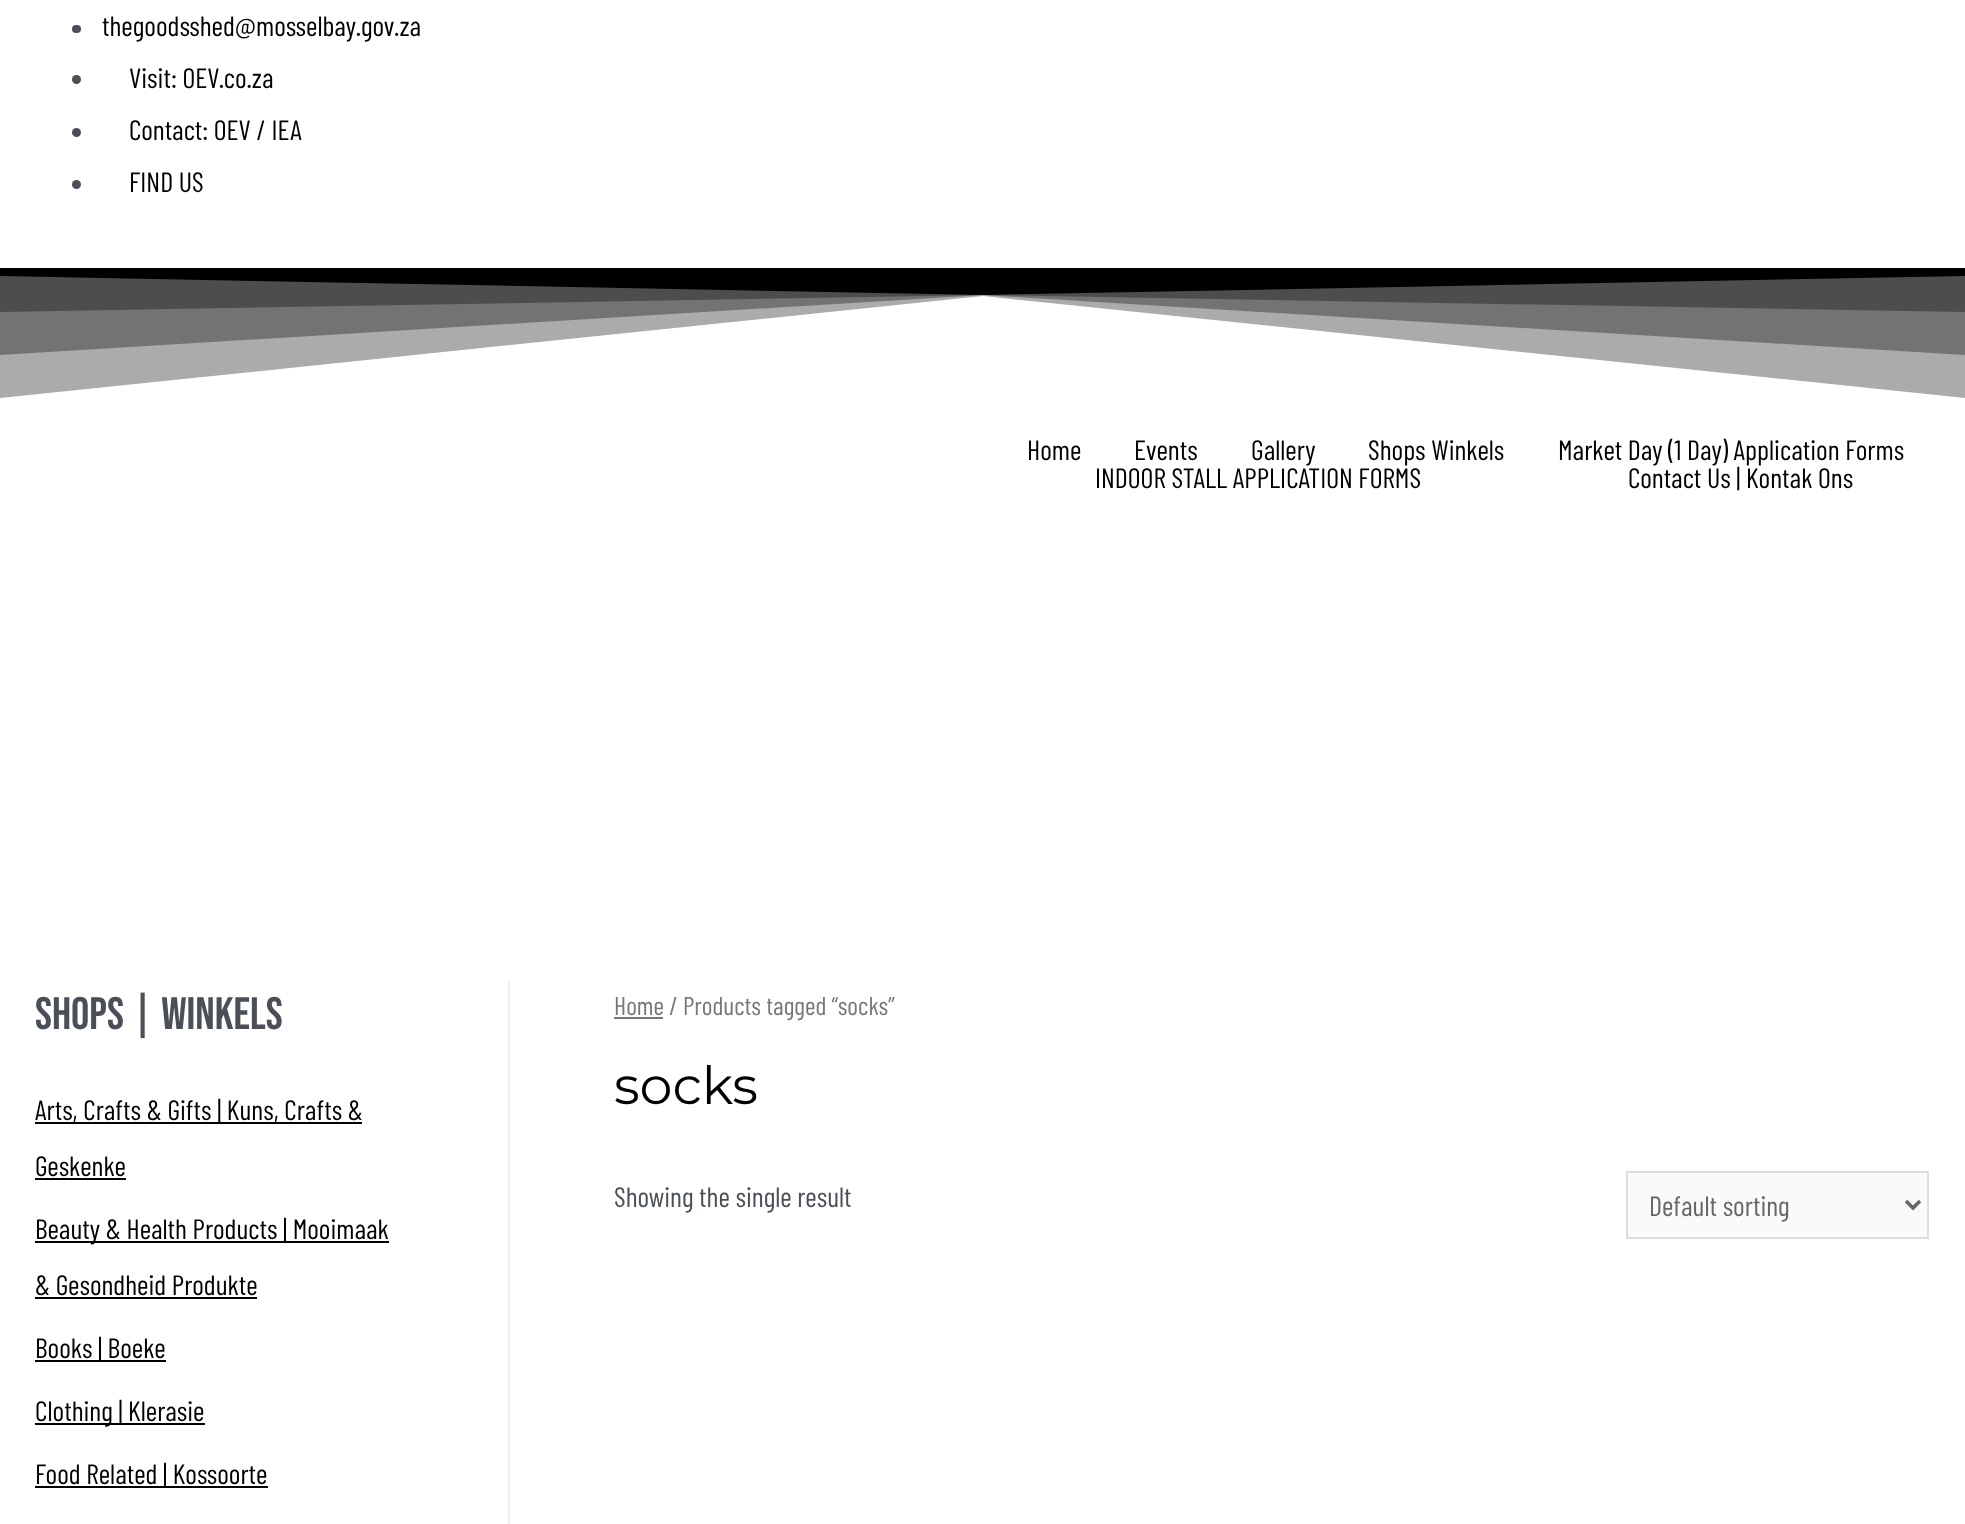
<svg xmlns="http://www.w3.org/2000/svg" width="1965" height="1524">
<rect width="100%" height="100%" fill="#fff"/>
<rect x="72" y="25" width="9" height="8" rx="4" fill="#4b4f58"/>
<text x="102" y="36" style="font-family:Barlow Condensed;font-size:28px;fill:#000">thegoodsshed@mosselbay.gov.za</text>
<circle cx="76.5" cy="79.5" r="4.5" fill="#4b4f58"/>
<text x="129" y="88" style="font-family:Barlow Condensed;font-size:28px;fill:#000">Visit: OEV.co.za</text>
<circle cx="76.5" cy="132.5" r="4.5" fill="#4b4f58"/>
<text x="129" y="140" style="font-family:Barlow Condensed;font-size:28px;fill:#000">Contact: OEV / IEA</text>
<circle cx="76.5" cy="184.5" r="4.5" fill="#4b4f58"/>
<text x="129" y="192" style="font-family:Barlow Condensed;font-size:28px;fill:#000">FIND US</text>
<path d="M0 268v130l983-102l982 102v-130z" fill="#ababab"/>
<path d="M0 268v87l983-60l982 60v-87z" fill="#737373"/>
<path d="M0 268v44l983-17l982 17v-44z" fill="#4d4d4d"/>
<path d="M0 268v8l983 19l982-19v-8z" fill="#000"/>
<text x="1027" y="460" style="font-family:Barlow Condensed;font-size:28px;fill:#000">Home</text>
<text x="1134" y="460" style="font-family:Barlow Condensed;font-size:28px;fill:#000">Events</text>
<text x="1251" y="460" style="font-family:Barlow Condensed;font-size:28px;fill:#000">Gallery</text>
<text x="1368" y="460" style="font-family:Barlow Condensed;font-size:28px;fill:#000">Shops Winkels</text>
<text x="1558" y="460" style="font-family:Barlow Condensed;font-size:28px;fill:#000">Market Day (1 Day) Application Forms</text>
<text x="1095" y="488" style="font-family:Barlow Condensed;font-size:28px;fill:#000">INDOOR STALL APPLICATION FORMS</text>
<text x="1628" y="488" style="font-family:Barlow Condensed;font-size:28px;fill:#000">Contact Us | Kontak Ons</text>
<rect x="508" y="982" width="2" height="542" fill="#eee"/>
<text x="35" y="1029" style="font-family:Bebas Neue;font-size:45.5px;fill:#4b4f58">SHOPS | WINKELS</text>
<rect x="35" y="1122" width="327" height="2" fill="#000"/>
<text x="35" y="1120" style="font-family:Barlow Condensed;font-size:28px;fill:#000">Arts, Crafts &amp; Gifts | Kuns, Crafts &amp;</text>
<text x="35" y="1176" style="font-family:Barlow Condensed;font-size:28px;fill:#000">Geskenke</text>
<rect x="35" y="1178" width="91" height="2" fill="#000"/>
<rect x="35" y="1241" width="354" height="2" fill="#000"/>
<text x="35" y="1239" style="font-family:Barlow Condensed;font-size:28px;fill:#000">Beauty &amp; Health Products | Mooimaak</text>
<text x="35" y="1295" style="font-family:Barlow Condensed;font-size:28px;fill:#000">&amp; Gesondheid Produkte</text>
<rect x="35" y="1297" width="222" height="2" fill="#000"/>
<rect x="35" y="1360" width="131" height="2" fill="#000"/>
<text x="35" y="1358" style="font-family:Barlow Condensed;font-size:28px;fill:#000">Books | Boeke</text>
<rect x="35" y="1423" width="170" height="2" fill="#000"/>
<text x="35" y="1421" style="font-family:Barlow Condensed;font-size:28px;fill:#000">Clothing | Klerasie</text>
<rect x="35" y="1486" width="233" height="2" fill="#000"/>
<text x="35" y="1484" style="font-family:Barlow Condensed;font-size:28px;fill:#000">Food Related | Kossoorte</text>
<rect x="614" y="1017" width="49" height="2" fill="#777"/>
<text x="614" y="1015" style="font-family:Barlow Condensed;font-size:25.75px;fill:#777">Home / Products tagged “socks”</text>
<text x="614" y="1104" style="font-family:Montserrat;font-size:52.5px;font-weight:100;fill:#000">socks</text>
<text x="614" y="1207" style="font-family:Barlow Condensed;font-size:28px;fill:#4b4f58">Showing the single result</text>
<rect x="1627" y="1172" width="301" height="66" fill="#fafafa" stroke="#ddd" stroke-width="2"/>
<path d="M1906 1201l7 7l7-7" fill="none" stroke="#666" stroke-width="3.5"/>
<text x="1649" y="1216" style="font-family:Barlow Condensed;font-size:28px;fill:#666">Default sorting</text>
</svg>
